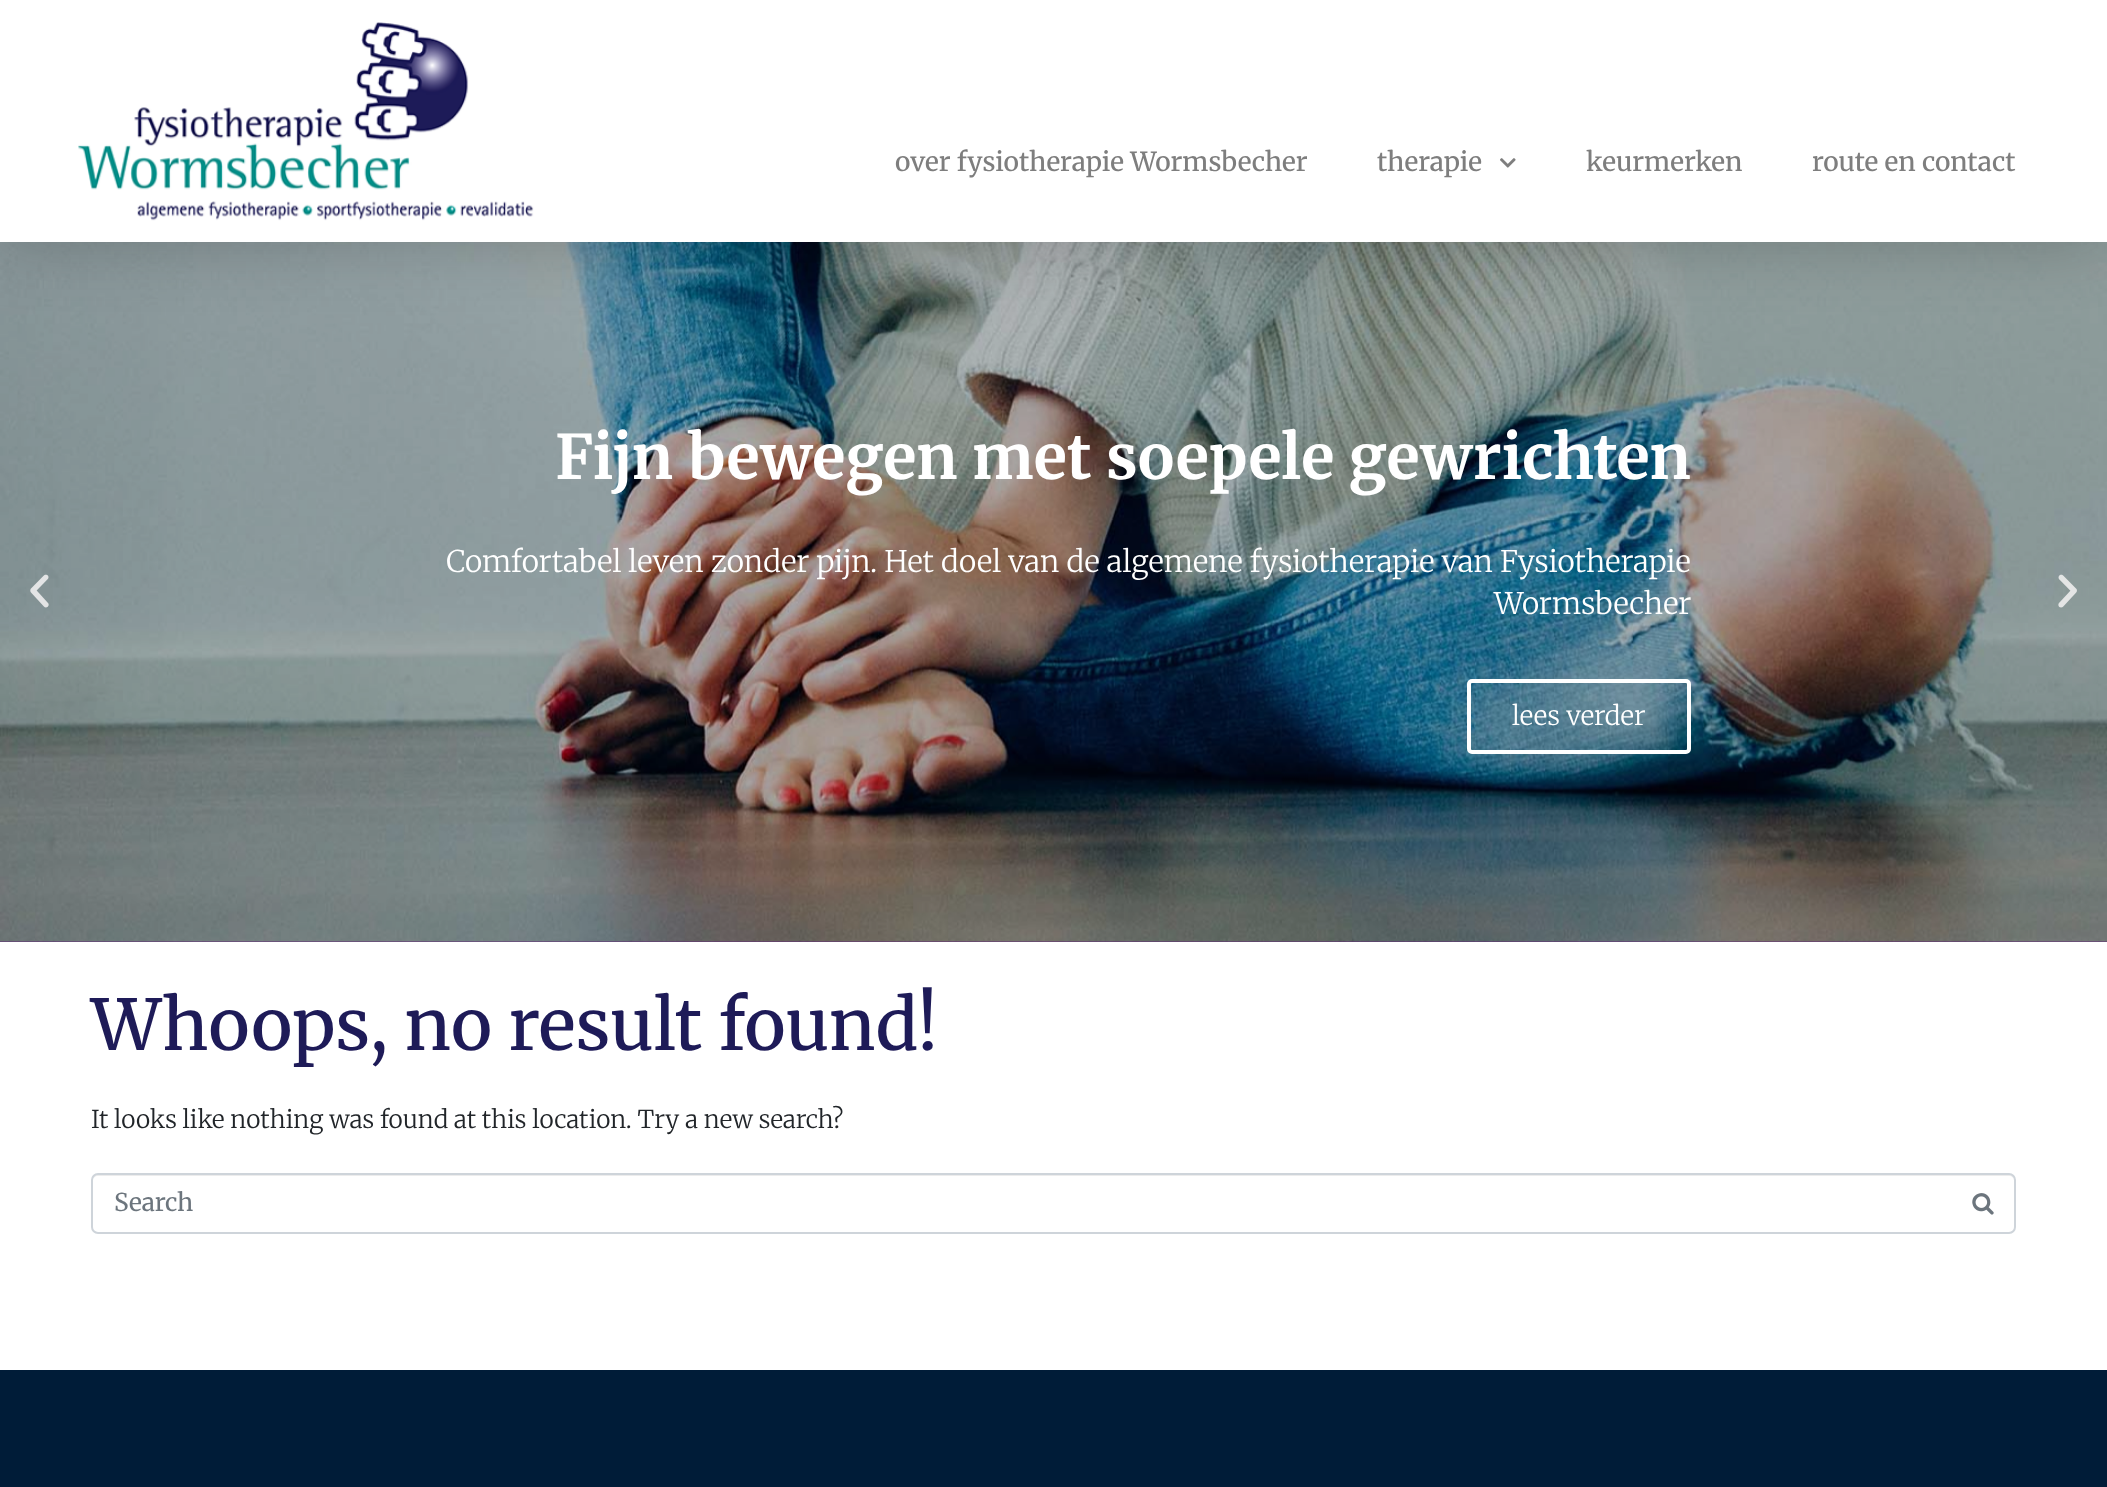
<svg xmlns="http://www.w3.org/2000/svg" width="2107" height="1487">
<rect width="100%" height="100%" fill="#fff"/>
<rect y="941" width="2107" height="1" fill="#602c77"/>
<image x="0" y="242" width="2107" height="700" href="media/4.png"/>
<rect width="2107" height="242" fill="#00000036" filter="blur(33px)"/>
<rect width="2107" height="242" fill="#fff"/>
<image x="78" y="22" width="456" height="199" href="media/1.png"/>
<text x="895" y="171" style="font-family:Merriweather;font-size:26.25px;font-weight:500;fill:#7e7e7e">over fysiotherapie Wormsbecher</text>
<text x="1377" y="171" style="font-family:Merriweather;font-size:26.25px;font-weight:500;fill:#7e7e7e">therapie</text>
<image x="1500" y="158" width="16" height="10" href="media/2.png"/>
<text x="1586" y="171" style="font-family:Merriweather;font-size:26.25px;font-weight:500;fill:#7e7e7e">keurmerken</text>
<text x="1812" y="171" style="font-family:Merriweather;font-size:26.25px;font-weight:500;fill:#7e7e7e">route en contact</text>
<image x="30" y="574" width="19" height="34" href="media/3.png"/>
<text x="555" y="479" style="font-family:Merriweather;font-size:61.25px;font-weight:bold;fill:#fff">Fijn bewegen met soepele gewrichten</text>
<text x="446" y="572" style="font-family:Merriweather;font-size:29.75px;font-weight:300;fill:#fff">Comfortabel leven zonder pijn. Het doel van de algemene fysiotherapie van Fysiotherapie</text>
<text x="1494" y="614" style="font-family:Merriweather;font-size:29.75px;font-weight:300;fill:#fff">Wormsbecher</text>
<rect x="1469" y="681" width="220" height="71" rx="3" fill="none" stroke="#fff" stroke-width="4"/>
<text x="1512" y="725" style="font-family:Merriweather;font-size:26.25px;font-weight:300;fill:#fff">lees verder</text>
<image x="2058" y="574" width="19" height="34" href="media/5.png"/>
<text x="91" y="1050" style="font-family:Merriweather;font-size:70px;font-weight:500;fill:#1e1b58">Whoops, no result found!</text>
<text x="91" y="1128" style="font-family:Merriweather;font-size:24.5px;font-weight:300;fill:#212529">It looks like nothing was found at this location. Try a new search?</text>
<path d="M98 1176h1911c3 0 5 2 5 5c0-3-1-7-5-7h-1911c-4 0-5 4-5 7c0-3 2-5 5-5z" fill="#ececec"/>
<rect x="92" y="1174" width="1923" height="59" rx="6" fill="none" stroke="#ced4da" stroke-width="2"/>
<text x="114" y="1211" style="font-family:Merriweather;font-size:24.5px;fill:#6c757d">Search</text>
<image x="1972" y="1193" width="22" height="22" href="media/6.png"/>
<rect y="1370" width="2107" height="117" fill="#001c38"/>
</svg>
